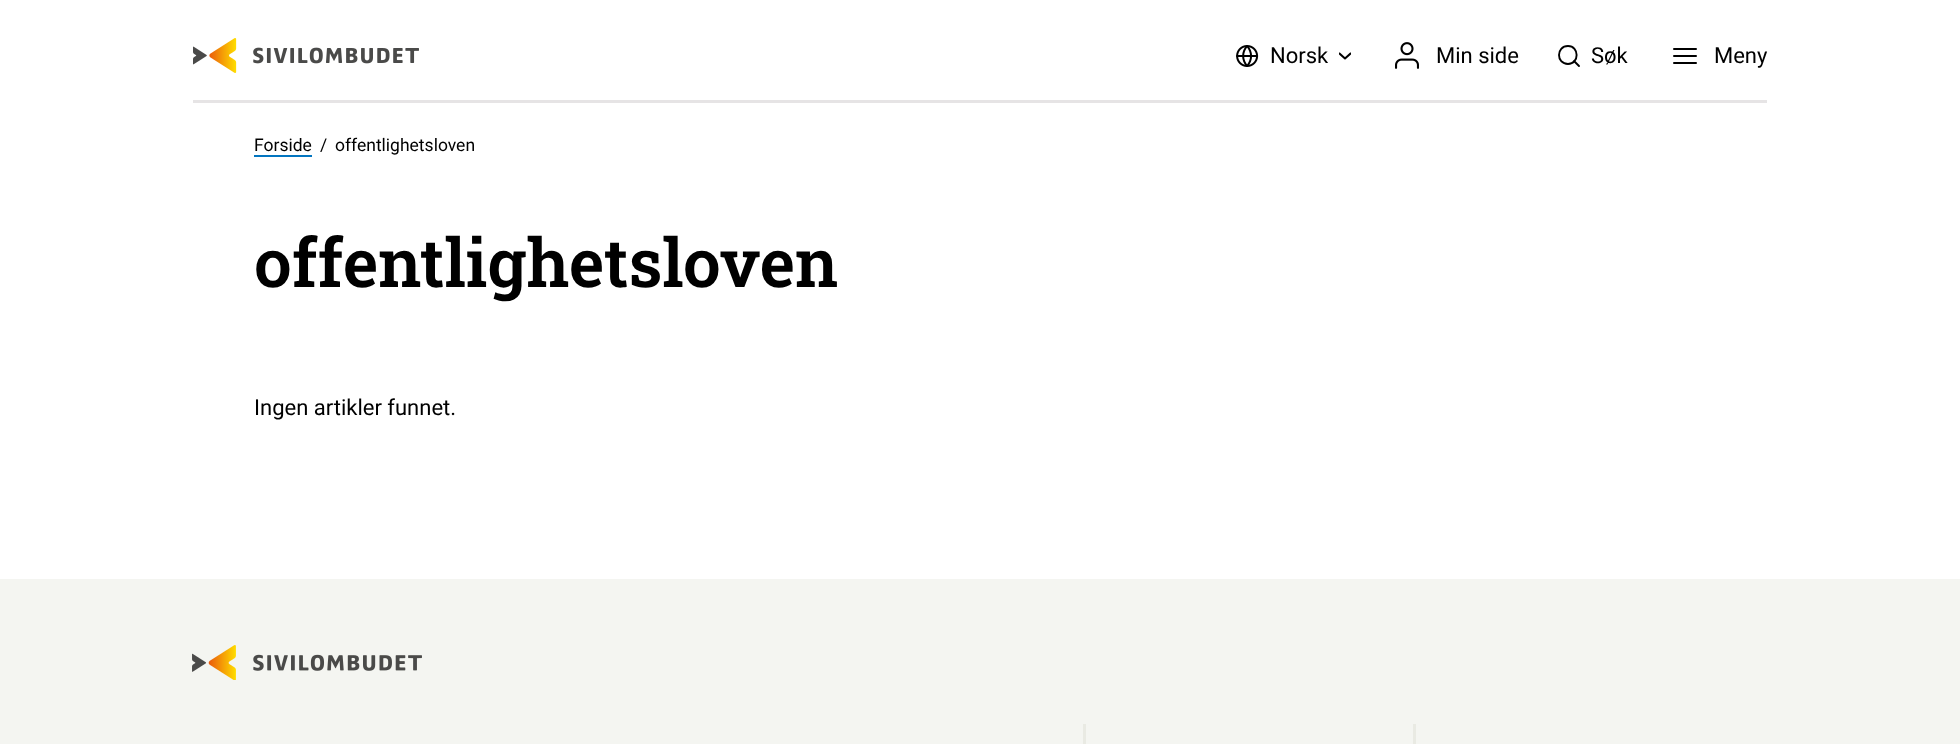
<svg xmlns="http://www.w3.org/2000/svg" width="1960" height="744">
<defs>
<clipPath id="clip1"><rect x="1339" y="52" width="12" height="8"/></clipPath>
</defs>
<rect width="100%" height="100%" fill="#fff"/>
<rect x="193" y="100" width="1574" height="3" fill="#e6e4e5"/>
<image x="193" y="38" width="226" height="35" href="media/1.png"/>
<image x="1236" y="45" width="23" height="22" href="media/2.png"/>
<text x="1270" y="63" style="font-family:Roboto;font-size:22px;fill:#000">Norsk</text>
<g clip-path="url(#clip1)">
<path d="M1339.5 53.5l5.5 5l5.5-5" fill="none" stroke="#000" stroke-width="2" stroke-linecap="round" stroke-linejoin="round"/>
</g>
<image x="1395" y="42" width="24" height="27" href="media/3.png"/>
<text x="1436" y="63" style="font-family:Roboto;font-size:22px;fill:#000">Min side</text>
<path d="M1568 64c11.5 0 11.5-18 0-18c-12 0-12 18 0 18zm11 2l-5-5" fill="none" stroke="#000" stroke-width="1.9" stroke-linecap="round" stroke-linejoin="round"/>
<text x="1591" y="63" style="font-family:Roboto;font-size:22px;fill:#000">Søk</text>
<rect x="1673" y="48" width="24" height="2" rx="1" fill="#000"/>
<rect x="1673" y="55" width="24" height="2" rx="1" fill="#000"/>
<rect x="1673" y="62" width="24" height="2" rx="1" fill="#000"/>
<text x="1714" y="63" style="font-family:Roboto;font-size:22px;fill:#000">Meny</text>
<text x="254" y="151" style="font-family:Roboto;font-size:17.5px;fill:#000">Forside</text>
<rect x="254" y="155" width="58" height="2" fill="#0275c0"/>
<text x="320" y="151" style="font-family:Roboto;font-size:17.5px;fill:#000">/</text>
<text x="335" y="151" style="font-family:Roboto;font-size:17.5px;fill:#000">offentlighetsloven</text>
<text x="254" y="287" style="font-family:Roboto Slab;font-size:67.25px;font-weight:600;fill:#000">offentlighetsloven</text>
<text x="254" y="415" style="font-family:Roboto;font-size:22px;fill:#000">Ingen artikler funnet.</text>
<rect y="579" width="1960" height="165" fill="#f4f5f1"/>
<image x="192" y="645" width="230" height="35" href="media/4.png"/>
<rect x="1083" y="724" width="3" height="20" fill="#e9eae3"/>
<rect x="1413" y="724" width="3" height="20" fill="#e9eae3"/>
</svg>
